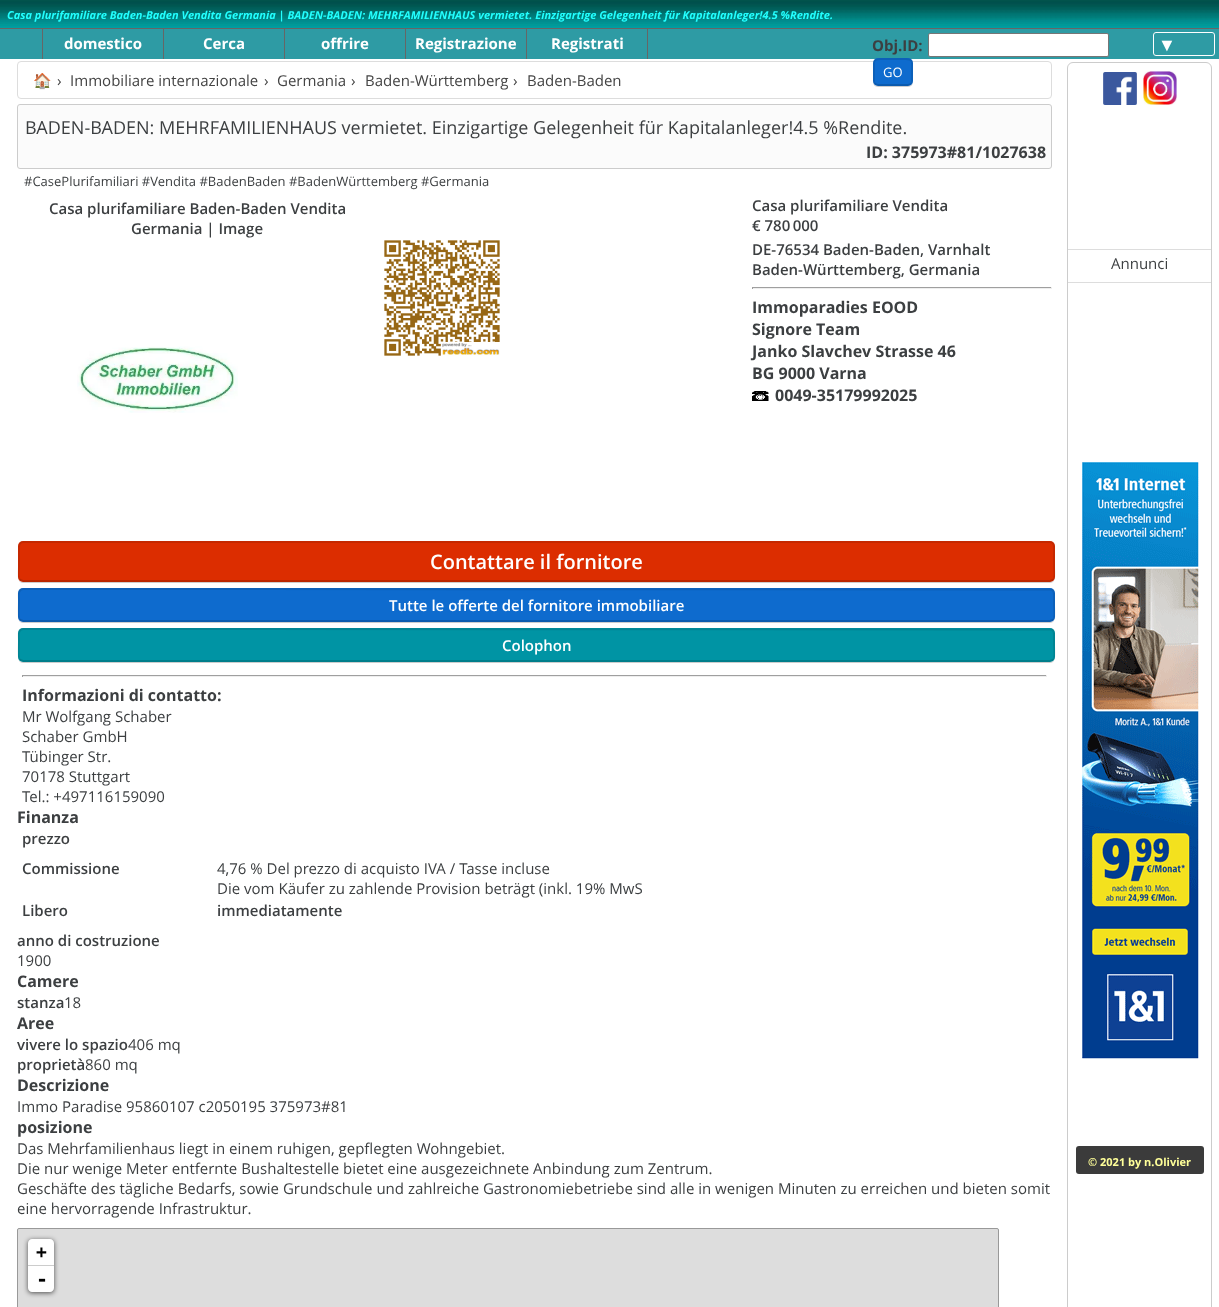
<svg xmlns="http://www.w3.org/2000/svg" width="1219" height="1307">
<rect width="100%" height="100%" fill="#fff"/>
<rect y="29" width="1219" height="30" fill="#2e9ba4"/>
<image x="0" y="0" width="1219" height="28" href="media/1.png"/>
<text x="7" y="19" style="font-family:Open Sans;font-size:11px;font-weight:bold;font-style:italic;fill:#2ff">Casa plurifamiliare Baden-Baden Vendita Germania | BADEN-BADEN: MEHRFAMILIENHAUS vermietet. Einzigartige Gelegenheit für Kapitalanleger!4.5 %Rendite.</text>
<rect y="28" width="1219" height="1" fill="#666"/>
<rect x="163" y="29" width="1" height="30" fill="#666"/>
<rect x="42" y="29" width="1" height="30" fill="#666"/>
<text x="64" y="49" style="font-family:Open Sans;font-size:15px;font-weight:bold;fill:#fff">domestico</text>
<rect x="284" y="29" width="1" height="30" fill="#666"/>
<text x="203" y="49" style="font-family:Open Sans;font-size:15px;font-weight:bold;fill:#fff">Cerca</text>
<rect x="405" y="29" width="1" height="30" fill="#666"/>
<text x="321" y="49" style="font-family:Open Sans;font-size:15px;font-weight:bold;fill:#fff">offrire</text>
<rect x="526" y="29" width="1" height="30" fill="#666"/>
<text x="415" y="49" style="font-family:Open Sans;font-size:15px;font-weight:bold;fill:#fff">Registrazione</text>
<rect x="647" y="29" width="1" height="30" fill="#666"/>
<text x="551" y="49" style="font-family:Open Sans;font-size:15px;font-weight:bold;fill:#fff">Registrati</text>
<text x="872" y="51" style="font-family:Open Sans;font-size:15px;font-weight:bold;fill:#3c3f41">Obj.ID:</text>
<rect x="928.5" y="33.5" width="180" height="23" rx="1.5" fill="#fff" stroke="#767676"/>
<rect x="17.5" y="61.5" width="1034" height="37" rx="3.5" fill="none" stroke="#ddd"/>
<path d="M873 81c0 7 5 6 10 6h20c5 0 10 1 10-6c0 3-2 5-5 5h-30c-3 0-5-2-5-5z" fill="#ccc"/>
<rect x="873" y="58" width="40" height="28" rx="5" fill="#0e6bce"/>
<path d="M911 84c-1 .5-2 1-3 1h-30c-1 0-2-.5-3-1" fill="none" stroke="#00000026" stroke-width="2"/>
<path d="M875 84c-1.5-1.5-1-4-1-6v-16c1-4 6-3 9-3h20c3 0 8-1 9 3v16c0 2 .5 4.5-1 6" fill="none" stroke="#0000001a" stroke-width="2"/>
<text x="883" y="77" style="font-family:Open Sans;font-size:13px;fill:#fff">GO</text>
<rect x="1153.5" y="32.5" width="61" height="23" rx="2.5" fill="none" stroke="#fff"/>
<text x="1158" y="51" style="font-family:Liberation Sans;font-size:18px;fill:#fff">▼</text>
<text x="33" y="86" style="font-family:Noto Color Emoji;font-size:15px;fill:#444">🏠</text>
<text x="57" y="86" style="font-family:Open Sans;font-size:15px;fill:#444">›</text>
<text x="70" y="86" style="font-family:Open Sans;font-size:15px;fill:#444">Immobiliare internazionale</text>
<text x="264" y="86" style="font-family:Open Sans;font-size:15px;fill:#444">›</text>
<text x="277" y="86" style="font-family:Open Sans;font-size:15px;fill:#444">Germania</text>
<text x="351" y="86" style="font-family:Open Sans;font-size:15px;fill:#444">›</text>
<text x="365" y="86" style="font-family:Open Sans;font-size:15px;fill:#444">Baden-Württemberg</text>
<text x="513" y="86" style="font-family:Open Sans;font-size:15px;fill:#444">›</text>
<text x="527" y="86" style="font-family:Open Sans;font-size:15px;fill:#444">Baden-Baden</text>
<rect x="17.5" y="104.5" width="1034" height="64" rx="2.5" fill="#fbfbfb" stroke="#ccc"/>
<text x="25" y="134" style="font-family:Open Sans;font-size:18px;fill:#3c3f41">BADEN-BADEN: MEHRFAMILIENHAUS vermietet. Einzigartige Gelegenheit für Kapitalanleger!4.5 %Rendite.</text>
<text x="866" y="158" style="font-family:Open Sans;font-size:16px;font-weight:bold;fill:#3c3f41">ID: 375973#81/1027638</text>
<text x="24" y="186" style="font-family:Open Sans;font-size:13px;fill:#3c3f41">#CasePlurifamiliari #Vendita #BadenBaden #BadenWürttemberg #Germania</text>
<text x="752" y="211" style="font-family:Open Sans;font-size:15px;font-weight:600;fill:#3c3f41">Casa plurifamiliare Vendita</text>
<text x="752" y="231" style="font-family:Open Sans;font-size:15px;font-weight:600;fill:#3c3f41">€ 780 000</text>
<text x="752" y="255" style="font-family:Open Sans;font-size:15px;font-weight:600;fill:#3c3f41">DE-76534 Baden-Baden, Varnhalt</text>
<text x="752" y="275" style="font-family:Open Sans;font-size:15px;font-weight:600;fill:#3c3f41">Baden-Württemberg, Germania</text>
<rect x="752" y="287" width="300" height="1" fill="#9f9f9f"/>
<rect x="1051" y="287" width="1" height="2" fill="#eee"/>
<rect x="752" y="288" width="300" height="1" fill="#eee"/>
<rect x="752" y="287" width="1" height="2" fill="#9f9f9f"/>
<text x="752" y="313" style="font-family:Open Sans;font-size:16px;font-weight:bold;fill:#3c3f41">Immoparadies EOOD</text>
<text x="752" y="335" style="font-family:Open Sans;font-size:16px;font-weight:bold;fill:#3c3f41">Signore Team</text>
<text x="752" y="357" style="font-family:Open Sans;font-size:16px;font-weight:bold;fill:#3c3f41">Janko Slavchev Strasse 46</text>
<text x="752" y="379" style="font-family:Open Sans;font-size:16px;font-weight:bold;fill:#3c3f41">BG 9000 Varna</text>
<image x="752" y="391" width="17" height="10" href="media/2.png"/>
<text x="775" y="401" style="font-family:Open Sans;font-size:16px;font-weight:bold;fill:#3c3f41">0049-35179992025</text>
<path d="M18 577c0 3 2 6 5 6h1027c3 0 5-3 5-6c0 3-2 5-5 5h-1027c-3 0-5-2-5-5z" fill="#ccc"/>
<rect x="18" y="541" width="1037" height="41" rx="5" fill="#dc2d00"/>
<path d="M1053 580l-3 1h-1027l-3-1" fill="none" stroke="#00000026" stroke-width="2"/>
<path d="M20 580c-2.5-2.5-1-10.5-1-13.5v-15.5c0-3-1-9 4-9h1027c5 0 4 6 4 9v15.5c0 3 1.5 11-1 13.5" fill="none" stroke="#0000001a" stroke-width="2"/>
<text x="430" y="569" style="font-family:Open Sans;font-size:20px;font-weight:600;fill:#fff">Contattare il fornitore</text>
<path d="M18 617c0 3 2 6 5 6h1027c3 0 5-3 5-6c0 3-2 5-5 5h-1027c-3 0-5-2-5-5z" fill="#ccc"/>
<rect x="18" y="588" width="1037" height="34" rx="5" fill="#0e6bce"/>
<path d="M1053 620l-3 1h-1027l-3-1" fill="none" stroke="#00000026" stroke-width="2"/>
<path d="M20 620c-2.5-2.5-1-15.5-1-19c0-3-2-12 4-12l1028.5 .5c3 1 2.5 5 2.5 7.5v8c0 3 1.5 12.5-1 15" fill="none" stroke="#0000001a" stroke-width="2"/>
<text x="389" y="611" style="font-family:Open Sans;font-size:15px;font-weight:600;fill:#fff">Tutte le offerte del fornitore immobiliare</text>
<path d="M18 657c0 3 2 6 5 6h1027c3 0 5-3 5-6c0 3-2 5-5 5h-1027c-3 0-5-2-5-5z" fill="#ccc"/>
<rect x="18" y="628" width="1037" height="34" rx="5" fill="#0094a4"/>
<path d="M1053 660l-3 1h-1027l-3-1" fill="none" stroke="#00000026" stroke-width="2"/>
<path d="M20 660c-2.5-2.5-1-15.5-1-19c0-3-2-12 4-12l1028.5 .5c3 1 2.5 5 2.5 7.5v8c0 3 1.5 12.5-1 15" fill="none" stroke="#0000001a" stroke-width="2"/>
<text x="502" y="651" style="font-family:Open Sans;font-size:15px;font-weight:600;fill:#fff">Colophon</text>
<rect x="22" y="675" width="1025" height="1" fill="#9f9f9f"/>
<rect x="1046" y="675" width="1" height="2" fill="#eee"/>
<rect x="22" y="676" width="1025" height="1" fill="#eee"/>
<rect x="22" y="675" width="1" height="2" fill="#9f9f9f"/>
<text x="22" y="701" style="font-family:Open Sans;font-size:16px;font-weight:bold;fill:#3c3f41">Informazioni di contatto:</text>
<text x="22" y="722" style="font-family:Open Sans;font-size:15px;fill:#3c3f41">Mr Wolfgang Schaber</text>
<text x="22" y="742" style="font-family:Open Sans;font-size:15px;fill:#3c3f41">Schaber GmbH</text>
<text x="22" y="762" style="font-family:Open Sans;font-size:15px;fill:#3c3f41">Tübinger Str.</text>
<text x="22" y="782" style="font-family:Open Sans;font-size:15px;fill:#3c3f41">70178 Stuttgart</text>
<text x="22" y="802" style="font-family:Open Sans;font-size:15px;fill:#3c3f41">Tel.: +497116159090</text>
<text x="49" y="214" style="font-family:Open Sans;font-size:15px;font-weight:600;fill:#3c3f41">Casa plurifamiliare Baden-Baden Vendita</text>
<text x="131" y="234" style="font-family:Open Sans;font-size:15px;font-weight:600;fill:#3c3f41">Germania | Image</text>
<image x="77" y="346" width="161" height="67" href="media/3.png"/>
<image x="384" y="240" width="116" height="116" href="media/4.png"/>
<text x="17" y="823" style="font-family:Open Sans;font-size:16px;font-weight:bold;fill:#3c3f41">Finanza</text>
<text x="22" y="844" style="font-family:Open Sans;font-size:15px;font-weight:600;fill:#3c3f41">prezzo</text>
<text x="22" y="874" style="font-family:Open Sans;font-size:15px;font-weight:600;fill:#3c3f41">Commissione</text>
<text x="217" y="874" style="font-family:Open Sans;font-size:15px;fill:#3c3f41">4,76 % Del prezzo di acquisto IVA / Tasse incluse</text>
<text x="217" y="894" style="font-family:Open Sans;font-size:15px;fill:#3c3f41">Die vom Käufer zu zahlende Provision beträgt (inkl. 19% MwS</text>
<text x="22" y="916" style="font-family:Open Sans;font-size:15px;font-weight:600;fill:#3c3f41">Libero</text>
<text x="217" y="916" style="font-family:Open Sans;font-size:15px;font-weight:600;fill:#3c3f41">immediatamente</text>
<text x="17" y="946" style="font-family:Open Sans;font-size:15px;font-weight:600;fill:#3c3f41">anno di costruzione</text>
<text x="17" y="966" style="font-family:Open Sans;font-size:15px;fill:#3c3f41">1900</text>
<text x="17" y="987" style="font-family:Open Sans;font-size:16px;font-weight:bold;fill:#3c3f41">Camere</text>
<text x="17" y="1008" style="font-family:Open Sans;font-size:15px;font-weight:600;fill:#3c3f41">stanza</text>
<text x="64" y="1008" style="font-family:Open Sans;font-size:15px;fill:#3c3f41">18</text>
<text x="17" y="1029" style="font-family:Open Sans;font-size:16px;font-weight:bold;fill:#3c3f41">Aree</text>
<text x="17" y="1050" style="font-family:Open Sans;font-size:15px;font-weight:600;fill:#3c3f41">vivere lo spazio</text>
<text x="128" y="1050" style="font-family:Open Sans;font-size:15px;fill:#3c3f41">406 mq</text>
<text x="17" y="1070" style="font-family:Open Sans;font-size:15px;font-weight:600;fill:#3c3f41">proprietà</text>
<text x="85" y="1070" style="font-family:Open Sans;font-size:15px;fill:#3c3f41">860 mq</text>
<text x="17" y="1091" style="font-family:Open Sans;font-size:16px;font-weight:bold;fill:#3c3f41">Descrizione</text>
<text x="17" y="1112" style="font-family:Open Sans;font-size:15px;fill:#3c3f41">Immo Paradise 95860107 c2050195 375973#81</text>
<text x="17" y="1133" style="font-family:Open Sans;font-size:16px;font-weight:bold;fill:#3c3f41">posizione</text>
<text x="17" y="1154" style="font-family:Open Sans;font-size:15px;fill:#3c3f41">Das Mehrfamilienhaus liegt in einem ruhigen, gepflegten Wohngebiet.</text>
<text x="17" y="1174" style="font-family:Open Sans;font-size:15px;fill:#3c3f41">Die nur wenige Meter entfernte Bushaltestelle bietet eine ausgezeichnete Anbindung zum Zentrum.</text>
<text x="17" y="1194" style="font-family:Open Sans;font-size:15px;fill:#3c3f41">Geschäfte des tägliche Bedarfs, sowie Grundschule und zahlreiche Gastronomiebetriebe sind alle in wenigen Minuten zu erreichen und bieten somit</text>
<text x="17" y="1214" style="font-family:Open Sans;font-size:15px;fill:#3c3f41">eine hervorragende Infrastruktur.</text>
<rect x="17.5" y="1228.5" width="981" height="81" rx="1.5" fill="#ddd" stroke="#999"/>
<rect x="28" y="1240" width="26" height="53" rx="4" fill="#000000a6" filter="blur(2.5px)"/>
<path d="M32 1239h18c2 0 4 2 4 4v23h-26v-23c0-2 2-4 4-4z" fill="#fff"/>
<rect x="28" y="1265" width="26" height="1" fill="#ccc"/>
<text x="36" y="1258" style="font-family:DejaVu Sans Mono;font-size:18px;font-weight:bold;fill:#000">+</text>
<path d="M28 1266h26v22c0 2-2 4-4 4h-18c-2 0-4-2-4-4z" fill="#fff"/>
<text x="36" y="1286" style="font-family:DejaVu Sans Mono;font-size:20px;font-weight:bold;fill:#000">-</text>
<rect x="1067.5" y="62.5" width="144" height="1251" rx="5.5" fill="none" stroke="#ccc"/>
<image x="1103" y="72" width="34" height="33" href="media/5.png"/>
<image x="1143" y="71" width="34" height="34" href="media/6.png"/>
<path d="M1211 283h-143v-1h143zm-143-33h143v-1h-143z" fill="#ddd" fill-rule="evenodd"/>
<text x="1111" y="269" style="font-family:Open Sans;font-size:15px;fill:#3c3f41">Annunci</text>
<image x="1082" y="462" width="117" height="597" href="media/7.png"/>
<rect x="1076" y="1146" width="128" height="28" rx="3" fill="#3b3b3b"/>
<text x="1088" y="1166" style="font-family:Open Sans;font-size:11px;font-weight:bold;fill:#ff9">© 2021 by n.Olivier</text>
</svg>
